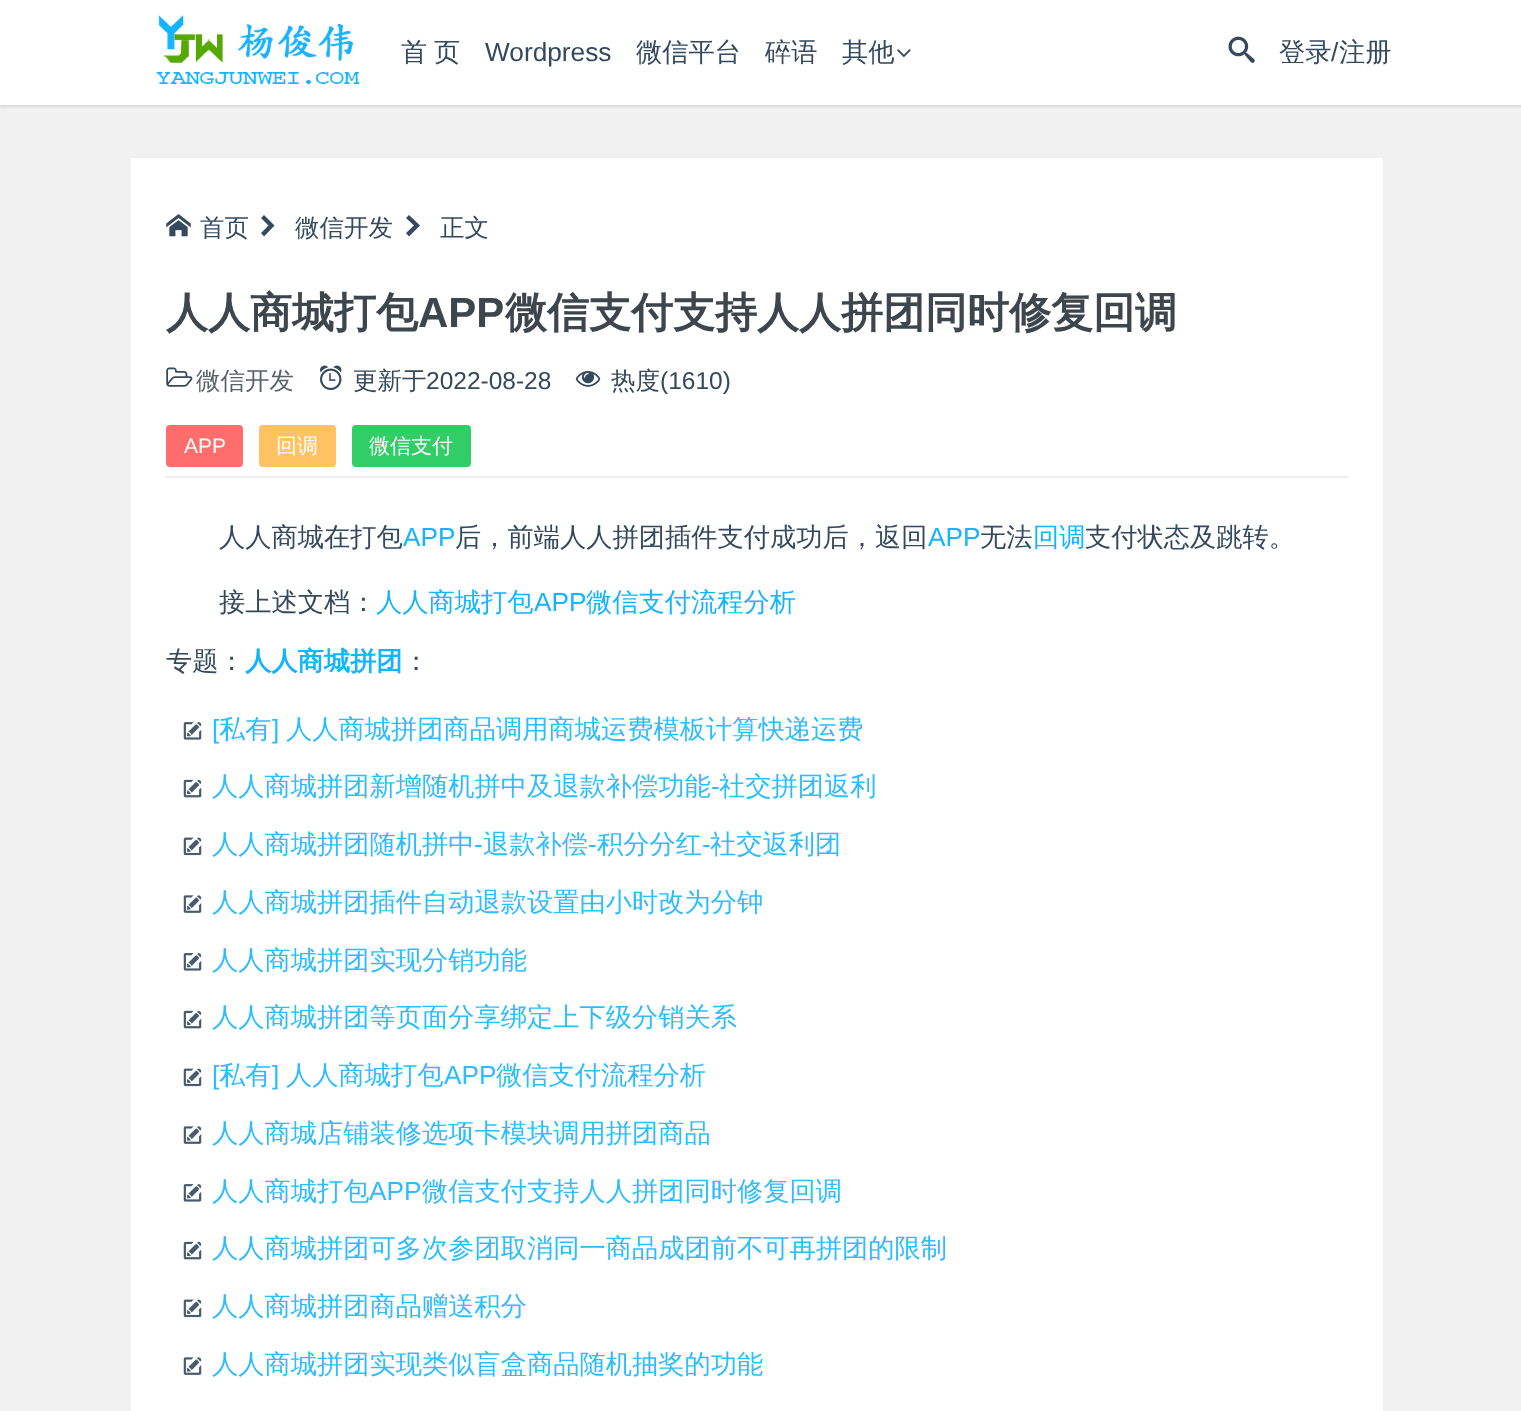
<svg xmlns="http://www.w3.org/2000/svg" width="1521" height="1411">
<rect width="100%" height="100%" fill="#f1f1f1"/>
<rect y="2" width="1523" height="105" fill="#0000001a" filter="blur(1px)"/>
<rect width="1521" height="105" fill="#fff"/>
<image x="156" y="15" width="204" height="69" href="media/1.png"/>
<text x="401" y="61" word-spacing="-1" style="font-family:WenQuanYi Zen Hei;font-size:26.25px;font-weight:500;fill:#34495e">首 页</text>
<text x="485" y="61" style="font-family:Liberation Sans;font-size:26.25px;fill:#34495e">Wordpress</text>
<text x="636" y="61" style="font-family:WenQuanYi Zen Hei;font-size:26.25px;font-weight:500;fill:#34495e">微信平台</text>
<text x="765" y="61" style="font-family:WenQuanYi Zen Hei;font-size:26.25px;font-weight:500;fill:#34495e">碎语</text>
<text x="842" y="61" style="font-family:WenQuanYi Zen Hei;font-size:26.25px;font-weight:500;fill:#34495e">其他</text>
<image x="897" y="49" width="14" height="9" href="media/2.png"/>
<image x="1228" y="36" width="27" height="27" href="media/3.png"/>
<text x="1279" y="61" style="font-family:WenQuanYi Zen Hei;font-size:26.25px;font-weight:500;fill:#34495e">登录</text>
<text x="1331" y="61" style="font-family:Liberation Sans;font-size:26.25px;fill:#34495e">/</text>
<text x="1339" y="61" style="font-family:WenQuanYi Zen Hei;font-size:26.25px;font-weight:500;fill:#34495e">注册</text>
<rect x="131" y="158" width="1252" height="1253" fill="#fff"/>
<image x="166" y="214" width="25" height="23" href="media/4.png"/>
<text x="200" y="236" style="font-family:WenQuanYi Zen Hei;font-size:24.5px;font-weight:500;fill:#34495e">首页</text>
<path d="M264 236.5l-3-3.5l7.5-7.5l-7.5-7.5l3-3l10.5 10.5z" fill="#34495e"/>
<text x="295" y="236" style="font-family:WenQuanYi Zen Hei;font-size:24.5px;font-weight:500;fill:#34495e">微信开发</text>
<path d="M409 236.5l-3-3.5l8-7.5l-8-7.5l3-3l11 10.5z" fill="#34495e"/>
<text x="440" y="236" style="font-family:WenQuanYi Zen Hei;font-size:24.5px;font-weight:500;fill:#34495e">正文</text>
<rect x="166" y="476" width="1182" height="2" fill="#eee"/>
<text x="166" y="327" style="font-family:WenQuanYi Zen Hei;font-size:42px;font-weight:bold;fill:#3d464d">人人商城打包</text>
<text x="418" y="327" style="font-family:Liberation Sans;font-size:42px;font-weight:bold;fill:#3d464d">APP</text>
<text x="505" y="327" style="font-family:WenQuanYi Zen Hei;font-size:42px;font-weight:bold;fill:#3d464d">微信支付支持人人拼团同时修复回调</text>
<image x="166" y="367" width="27" height="20" href="media/5.png"/>
<text x="196" y="389" style="font-family:WenQuanYi Zen Hei;font-size:24.5px;font-weight:500;fill:#576366">微信开发</text>
<image x="320" y="365" width="22" height="25" href="media/6.png"/>
<text x="353" y="389" style="font-family:WenQuanYi Zen Hei;font-size:24.5px;font-weight:500;fill:#34495e">更新于</text>
<text x="426" y="389" style="font-family:Liberation Sans;font-size:24.5px;fill:#34495e">2022-08-28</text>
<image x="575" y="371" width="26" height="16" href="media/7.png"/>
<text x="611" y="389" style="font-family:WenQuanYi Zen Hei;font-size:24.5px;font-weight:500;fill:#34495e">热度</text>
<text x="660" y="389" style="font-family:Liberation Sans;font-size:24.5px;fill:#34495e">(1610)</text>
<rect x="166" y="425" width="77" height="42" rx="4" fill="#ff6e6c"/>
<text x="184" y="453" style="font-family:Liberation Sans;font-size:21px;fill:#fff">APP</text>
<rect x="259" y="425" width="77" height="42" rx="4" fill="#ffc262"/>
<text x="276" y="453" style="font-family:WenQuanYi Zen Hei;font-size:21px;font-weight:500;fill:#fff">回调</text>
<rect x="352" y="425" width="119" height="42" rx="4" fill="#31cd67"/>
<text x="369" y="453" style="font-family:WenQuanYi Zen Hei;font-size:21px;font-weight:500;fill:#fff">微信支付</text>
<text x="219" y="546" style="font-family:WenQuanYi Zen Hei;font-size:26.25px;font-weight:500;fill:#34495e">人人商城在打包</text>
<text x="403" y="546" style="font-family:Liberation Sans;font-size:26.25px;fill:#14b4ff">APP</text>
<text x="455" y="546" style="font-family:WenQuanYi Zen Hei;font-size:26.25px;font-weight:500;fill:#34495e">后，前端人人拼团插件支付成功后，返回</text>
<text x="928" y="546" style="font-family:Liberation Sans;font-size:26.25px;fill:#14b4ff">APP</text>
<text x="980" y="546" style="font-family:WenQuanYi Zen Hei;font-size:26.25px;font-weight:500;fill:#34495e">无法</text>
<text x="1033" y="546" style="font-family:WenQuanYi Zen Hei;font-size:26.25px;font-weight:500;fill:#14b4ff">回调</text>
<text x="1085" y="546" style="font-family:WenQuanYi Zen Hei;font-size:26.25px;font-weight:500;fill:#34495e">支付状态及跳转。</text>
<text x="219" y="611" style="font-family:WenQuanYi Zen Hei;font-size:26.25px;font-weight:500;fill:#34495e">接上述文档：</text>
<text x="376" y="611" style="font-family:WenQuanYi Zen Hei;font-size:26.25px;font-weight:500;fill:#14b4ff">人人商城打包</text>
<text x="534" y="611" style="font-family:Liberation Sans;font-size:26.25px;fill:#14b4ff">APP</text>
<text x="586" y="611" style="font-family:WenQuanYi Zen Hei;font-size:26.25px;font-weight:500;fill:#14b4ff">微信支付流程分析</text>
<text x="166" y="670" style="font-family:WenQuanYi Zen Hei;font-size:26.25px;font-weight:500;fill:#34495e">专题：</text>
<text x="245" y="670" style="font-family:WenQuanYi Zen Hei;font-size:26.25px;font-weight:bold;fill:#14b4ff">人人商城拼团</text>
<text x="403" y="670" style="font-family:WenQuanYi Zen Hei;font-size:26.25px;font-weight:500;fill:#34495e">：</text>
<image x="183" y="722" width="19" height="18" href="media/8.png"/>
<text x="212" y="738" style="font-family:Liberation Sans;font-size:26.25px;fill:#2cbcff">[</text>
<text x="219" y="738" style="font-family:WenQuanYi Zen Hei;font-size:26.25px;font-weight:500;fill:#2cbcff">私有</text>
<text x="272" y="738" style="font-family:Liberation Sans;font-size:26.25px;fill:#2cbcff">]</text>
<text x="286" y="738" style="font-family:WenQuanYi Zen Hei;font-size:26.25px;font-weight:500;fill:#2cbcff">人人商城拼团商品调用商城运费模板计算快递运费</text>
<image x="183" y="779" width="19" height="19" href="media/9.png"/>
<text x="212" y="795" style="font-family:WenQuanYi Zen Hei;font-size:26.25px;font-weight:500;fill:#2cbcff">人人商城拼团新增随机拼中及退款补偿功能</text>
<text x="711" y="795" style="font-family:Liberation Sans;font-size:26.25px;fill:#2cbcff">-</text>
<text x="719" y="795" style="font-family:WenQuanYi Zen Hei;font-size:26.25px;font-weight:500;fill:#2cbcff">社交拼团返利</text>
<image x="183" y="837" width="19" height="19" href="media/10.png"/>
<text x="212" y="853" style="font-family:WenQuanYi Zen Hei;font-size:26.25px;font-weight:500;fill:#2cbcff">人人商城拼团随机拼中</text>
<text x="474" y="853" style="font-family:Liberation Sans;font-size:26.25px;fill:#2cbcff">-</text>
<text x="483" y="853" style="font-family:WenQuanYi Zen Hei;font-size:26.25px;font-weight:500;fill:#2cbcff">退款补偿</text>
<text x="588" y="853" style="font-family:Liberation Sans;font-size:26.25px;fill:#2cbcff">-</text>
<text x="597" y="853" style="font-family:WenQuanYi Zen Hei;font-size:26.25px;font-weight:500;fill:#2cbcff">积分分红</text>
<text x="702" y="853" style="font-family:Liberation Sans;font-size:26.25px;fill:#2cbcff">-</text>
<text x="710" y="853" style="font-family:WenQuanYi Zen Hei;font-size:26.25px;font-weight:500;fill:#2cbcff">社交返利团</text>
<image x="183" y="895" width="19" height="18" href="media/11.png"/>
<text x="212" y="911" style="font-family:WenQuanYi Zen Hei;font-size:26.25px;font-weight:500;fill:#2cbcff">人人商城拼团插件自动退款设置由小时改为分钟</text>
<image x="183" y="953" width="19" height="18" href="media/8.png"/>
<text x="212" y="969" style="font-family:WenQuanYi Zen Hei;font-size:26.25px;font-weight:500;fill:#2cbcff">人人商城拼团实现分销功能</text>
<image x="183" y="1010" width="19" height="19" href="media/9.png"/>
<text x="212" y="1026" style="font-family:WenQuanYi Zen Hei;font-size:26.25px;font-weight:500;fill:#2cbcff">人人商城拼团等页面分享绑定上下级分销关系</text>
<image x="183" y="1068" width="19" height="19" href="media/10.png"/>
<text x="212" y="1084" style="font-family:Liberation Sans;font-size:26.25px;fill:#2cbcff">[</text>
<text x="219" y="1084" style="font-family:WenQuanYi Zen Hei;font-size:26.25px;font-weight:500;fill:#2cbcff">私有</text>
<text x="272" y="1084" style="font-family:Liberation Sans;font-size:26.25px;fill:#2cbcff">]</text>
<text x="286" y="1084" style="font-family:WenQuanYi Zen Hei;font-size:26.25px;font-weight:500;fill:#2cbcff">人人商城打包</text>
<text x="444" y="1084" style="font-family:Liberation Sans;font-size:26.25px;fill:#2cbcff">APP</text>
<text x="496" y="1084" style="font-family:WenQuanYi Zen Hei;font-size:26.25px;font-weight:500;fill:#2cbcff">微信支付流程分析</text>
<image x="183" y="1126" width="19" height="18" href="media/11.png"/>
<text x="212" y="1142" style="font-family:WenQuanYi Zen Hei;font-size:26.25px;font-weight:500;fill:#2cbcff">人人商城店铺装修选项卡模块调用拼团商品</text>
<image x="183" y="1184" width="19" height="18" href="media/8.png"/>
<text x="212" y="1200" style="font-family:WenQuanYi Zen Hei;font-size:26.25px;font-weight:500;fill:#2cbcff">人人商城打包</text>
<text x="369" y="1200" style="font-family:Liberation Sans;font-size:26.25px;fill:#2cbcff">APP</text>
<text x="422" y="1200" style="font-family:WenQuanYi Zen Hei;font-size:26.25px;font-weight:500;fill:#2cbcff">微信支付支持人人拼团同时修复回调</text>
<image x="183" y="1241" width="19" height="19" href="media/9.png"/>
<text x="212" y="1257" style="font-family:WenQuanYi Zen Hei;font-size:26.25px;font-weight:500;fill:#2cbcff">人人商城拼团可多次参团取消同一商品成团前不可再拼团的限制</text>
<image x="183" y="1299" width="19" height="19" href="media/10.png"/>
<text x="212" y="1315" style="font-family:WenQuanYi Zen Hei;font-size:26.25px;font-weight:500;fill:#2cbcff">人人商城拼团商品赠送积分</text>
<image x="183" y="1357" width="19" height="18" href="media/11.png"/>
<text x="212" y="1373" style="font-family:WenQuanYi Zen Hei;font-size:26.25px;font-weight:500;fill:#2cbcff">人人商城拼团实现类似盲盒商品随机抽奖的功能</text>
</svg>
